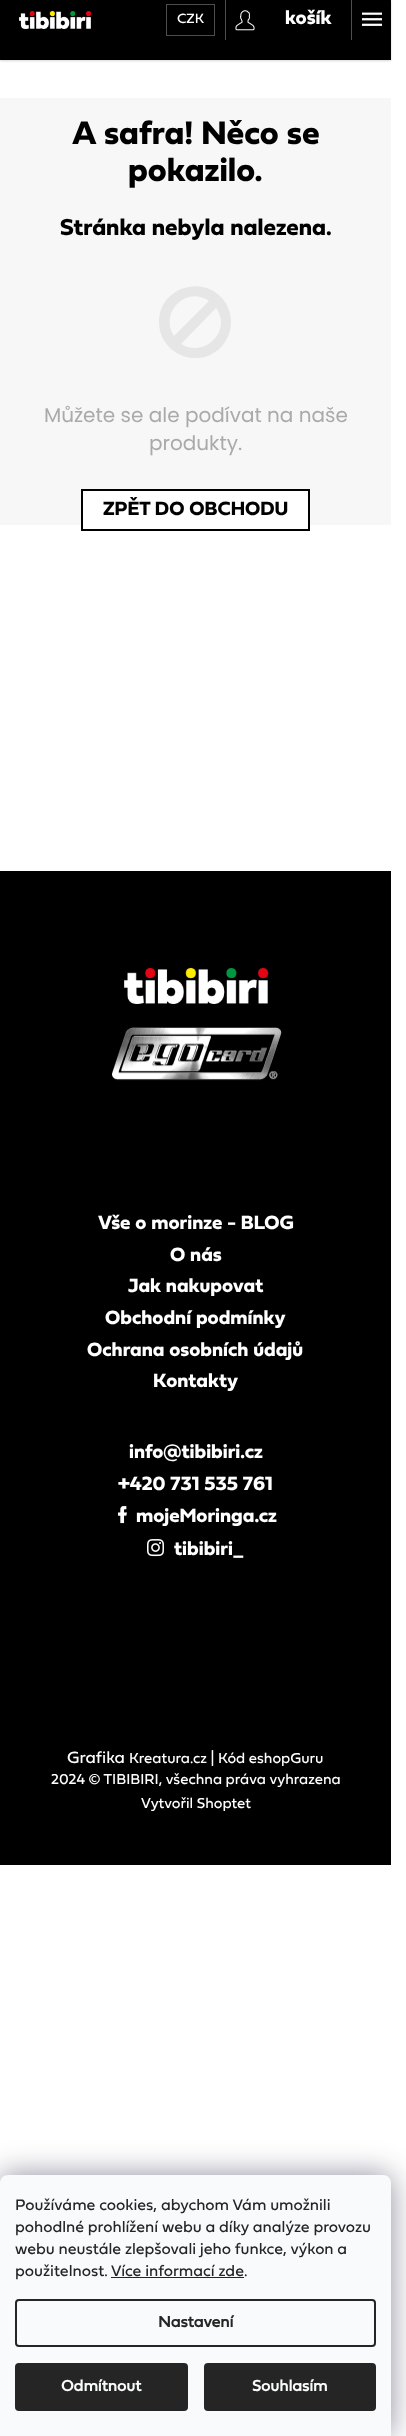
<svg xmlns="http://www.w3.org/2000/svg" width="406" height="2436">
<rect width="100%" height="100%" fill="#fff"/>
<rect y="1" width="391" height="60" fill="#00000029" filter="blur(1px)"/>
<rect width="391" height="60" fill="#000"/>
<image x="19" y="11" width="73" height="18" href="media/1.png"/>
<rect x="166.5" y="4.5" width="48" height="31" fill="none" stroke="#4d4d4d"/>
<text x="177" y="23" style="font-family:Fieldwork;font-size:14px;fill:#fff">CZK</text>
<rect x="225" width="1" height="40" fill="#4d4d4d"/>
<image x="235" y="10" width="20" height="21" href="media/2.png"/>
<text x="285" y="24" style="font-family:Fieldwork;font-size:20px;font-weight:bold;fill:#fff">košík</text>
<rect x="351" width="1" height="40" fill="#4d4d4d"/>
<image x="362" y="12" width="20" height="14" href="media/3.png"/>
<rect y="98" width="391" height="427" fill="#f7f7f7"/>
<text x="72" y="144" style="font-family:Fieldwork;font-size:34px;font-weight:bold;fill:#000">A safra! Něco se</text>
<text x="128" y="181" style="font-family:Fieldwork;font-size:34px;font-weight:bold;fill:#000">pokazilo.</text>
<text x="60" y="235" style="font-family:Fieldwork;font-size:24px;font-weight:bold;fill:#000">Stránka nebyla nalezena.</text>
<path d="M221 322c0-5-2-10-5-14l-35 36c17 11 40-2 40-22zm-47 14l35-35c-23-16-50 12-35 35zm57-14c0 7-2 14-6 20c-20 30-66 15-66-20c0-35 46-49 66-20c4 6 6 13 6 20z" fill="#e6e6e6"/>
<text x="44" y="422" style="font-family:Poppins;font-size:20px;fill:#aaa">Můžete se ale podívat na naše</text>
<text x="149" y="450" style="font-family:Poppins;font-size:20px;fill:#aaa">produkty.</text>
<rect x="83" y="491" width="225" height="34" fill="#fff"/>
<rect x="82" y="490" width="227" height="40" fill="none" stroke="#000" stroke-width="2"/>
<text x="103" y="515" style="font-family:Fieldwork;font-size:20px;font-weight:bold;fill:#000">ZPĚT DO OBCHODU</text>
<rect y="871" width="391" height="994" fill="#000"/>
<image x="124" y="967" width="145" height="37" href="media/4.png"/>
<image x="112" y="1027" width="170" height="54" href="media/5.png"/>
<text x="98" y="1229" style="font-family:Fieldwork;font-size:20px;font-weight:bold;fill:#fff">Vše o morinze - BLOG</text>
<text x="170" y="1261" style="font-family:Fieldwork;font-size:20px;font-weight:bold;fill:#fff">O nás</text>
<text x="128" y="1292" style="font-family:Fieldwork;font-size:20px;font-weight:bold;fill:#fff">Jak nakupovat</text>
<text x="105" y="1324" style="font-family:Fieldwork;font-size:20px;font-weight:bold;fill:#fff">Obchodní podmínky</text>
<text x="87" y="1356" style="font-family:Fieldwork;font-size:20px;font-weight:bold;fill:#fff">Ochrana osobních údajů</text>
<text x="153" y="1387" style="font-family:Fieldwork;font-size:20px;font-weight:bold;fill:#fff">Kontakty</text>
<text x="129" y="1458" style="font-family:Fieldwork;font-size:20px;font-weight:bold;fill:#fff">info@tibibiri.cz</text>
<text x="118" y="1490" style="font-family:Fieldwork;font-size:20px;font-weight:bold;fill:#fff">+420 731 535 761</text>
<image x="118" y="1506" width="9" height="18" href="media/6.png"/>
<text x="136" y="1522" style="font-family:Fieldwork;font-size:20px;font-weight:bold;fill:#fff">mojeMoringa.cz</text>
<image x="147" y="1539" width="17" height="18" href="media/7.png"/>
<text x="174" y="1555" style="font-family:Fieldwork;font-size:20px;font-weight:bold;fill:#fff">tibibiri_</text>
<text x="67" y="1763" style="font-family:Fieldwork;font-size:17px;fill:#fff">Grafika</text>
<text x="129" y="1763" style="font-family:Fieldwork;font-size:15px;fill:#fff">Kreatura.cz | Kód eshopGuru</text>
<text x="51" y="1784" style="font-family:Fieldwork;font-size:15px;fill:#fff">2024 © TIBIBIRI, všechna práva vyhrazena</text>
<text x="141" y="1808" style="font-family:Fieldwork;font-size:15px;fill:#fff">Vytvořil Shoptet</text>
<rect y="2175" width="391" height="261" rx="8" fill="#1b193980" filter="blur(15px)"/>
<path d="M8 2175h375c4.5 0 8 3.5 8 8v253h-391v-253c0-4.5 3.5-8 8-8z" fill="#f8fafb"/>
<text x="15" y="2210" style="font-family:Fieldwork;font-size:16px;fill:#252525">Používáme cookies, abychom Vám umožnili</text>
<text x="15" y="2232" style="font-family:Fieldwork;font-size:16px;fill:#252525">pohodlné prohlížení webu a díky analýze provozu</text>
<text x="15" y="2254" style="font-family:Fieldwork;font-size:16px;fill:#252525">webu neustále zlepšovali jeho funkce, výkon a</text>
<text x="15" y="2276" style="font-family:Fieldwork;font-size:16px;fill:#252525">použitelnost.</text>
<text x="111" y="2276" style="font-family:Fieldwork;font-size:16px;fill:#252525">Více informací zde.</text>
<rect x="111" y="2277" width="133" height="1" fill="#252525"/>
<rect x="16" y="2300" width="359" height="46" rx="3" fill="none" stroke="#252525" stroke-width="2"/>
<text x="158" y="2327" style="font-family:'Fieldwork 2';font-size:16px;font-weight:bold;fill:#252525">Nastavení</text>
<rect x="15" y="2363" width="173" height="48" rx="4" fill="#252525"/>
<text x="61" y="2391" style="font-family:'Fieldwork 2';font-size:16px;font-weight:bold;fill:#f8fafb">Odmítnout</text>
<rect x="204" y="2363" width="172" height="48" rx="4" fill="#252525"/>
<text x="252" y="2391" style="font-family:'Fieldwork 2';font-size:16px;font-weight:bold;fill:#f8fafb">Souhlasím</text>
</svg>
